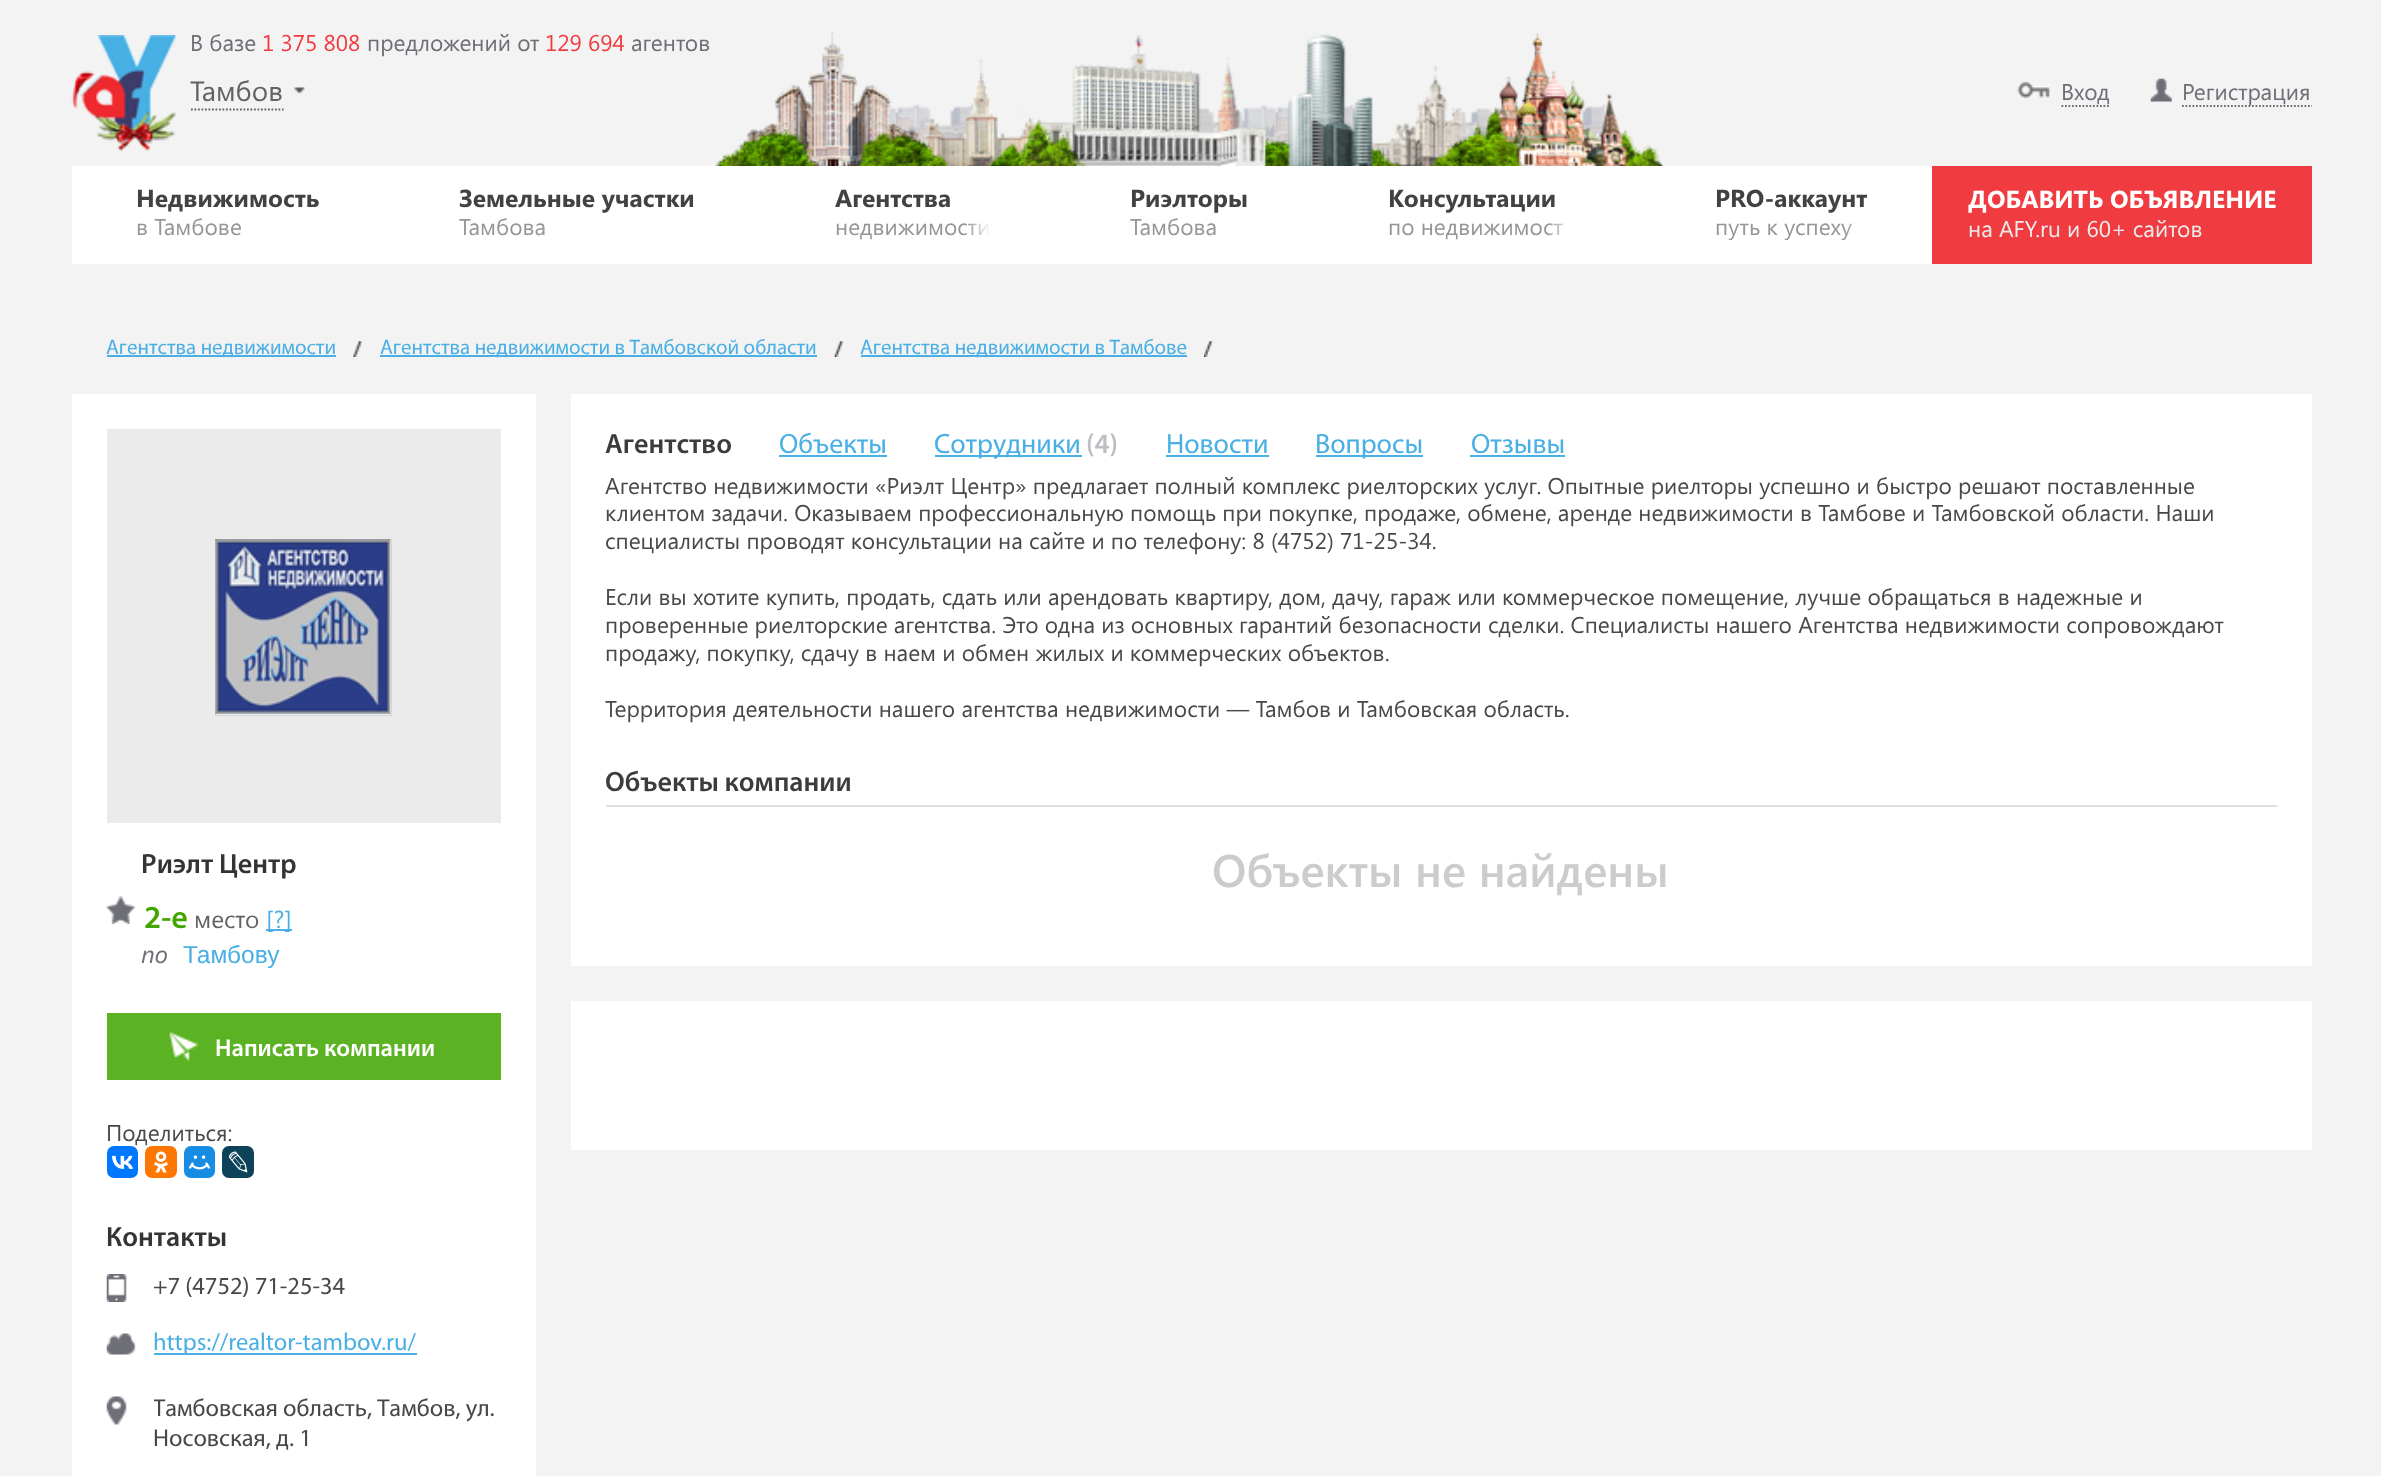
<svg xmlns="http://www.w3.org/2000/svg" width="2381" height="1476">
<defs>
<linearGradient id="g1" gradientUnits="userSpaceOnUse" x1="966" y1="226" x2="991" y2="226"><stop offset="0" stop-color="#fff" stop-opacity="0"/><stop offset="1" stop-color="#fff"/></linearGradient>
<linearGradient id="g2" gradientUnits="userSpaceOnUse" x1="1547" y1="226" x2="1575" y2="226"><stop offset="0" stop-color="#fff" stop-opacity="0"/><stop offset="1" stop-color="#fff"/></linearGradient>
<clipPath id="clip1"><rect x="1715" y="212" width="152" height="28"/></clipPath>
<linearGradient id="g3" gradientUnits="userSpaceOnUse" x1="1845" y1="226" x2="1867" y2="226"><stop offset="0" stop-color="#fff" stop-opacity="0"/><stop offset="1" stop-color="#fff"/></linearGradient>
<clipPath id="clip2"><rect x="154" y="1395" width="347" height="59"/></clipPath>
</defs>
<rect width="100%" height="100%" fill="#f3f3f3"/>
<image x="715" y="31" width="948" height="135" href="media/1.png"/>
<image x="71" y="35" width="106" height="116" href="media/2.png"/>
<text x="190" y="51" style="font-family:Segoe UI;font-size:22.75px;fill:#6d6e76">В базе</text>
<text x="262" y="51" style="font-family:Segoe UI;font-size:22.75px;fill:#f03c40">1 375 808</text>
<text x="367" y="51" style="font-family:Segoe UI;font-size:22.75px;fill:#6d6e76">предложений от</text>
<text x="545" y="51" style="font-family:Segoe UI;font-size:22.75px;fill:#f03c40">129 694</text>
<text x="631" y="51" style="font-family:Segoe UI;font-size:22.75px;fill:#6d6e76">агентов</text>
<text x="190" y="101" style="font-family:Segoe UI;font-size:28px;fill:#626262">Тамбов</text>
<path d="M191 109.5h92.5" fill="none" stroke="#5e6163" stroke-width="1.8" stroke-dasharray="1.75 1.75"/>
<image x="294" y="87" width="11" height="6" href="media/3.png"/>
<image x="2017" y="82" width="33" height="18" href="media/4.png"/>
<text x="2061" y="100" style="font-family:Segoe UI;font-size:22.75px;fill:#6d6e76">Вход</text>
<path d="M2061.5 106h49" fill="none" stroke="#6d6e76" stroke-width="1.8" stroke-dasharray="1.75 1.75"/>
<image x="2150" y="78" width="22" height="24" href="media/5.png"/>
<path d="M2182 106h130" fill="none" stroke="#6d6e76" stroke-width="1.8" stroke-dasharray="1.75 1.75"/>
<text x="2182" y="100" style="font-family:Segoe UI;font-size:22.75px;fill:#6d6e76">Регистрация</text>
<rect x="72" y="166" width="1860" height="98" fill="#fff"/>
<text x="136" y="207" style="font-family:Segoe UI;font-size:24.5px;font-weight:bold;fill:#424242">Недвижимость</text>
<text x="136" y="235" style="font-family:Segoe UI;font-size:22.75px;fill:#969696">в Тамбове</text>
<text x="459" y="207" style="font-family:Segoe UI;font-size:24.5px;font-weight:bold;fill:#424242">Земельные участки</text>
<text x="459" y="235" style="font-family:Segoe UI;font-size:22.75px;fill:#969696">Тамбова</text>
<text x="835" y="207" style="font-family:Segoe UI;font-size:24.5px;font-weight:bold;fill:#424242">Агентства</text>
<text x="835" y="235" style="font-family:Segoe UI;font-size:22.75px;fill:#969696">недвижимости</text>
<rect x="968" y="223" width="21" height="12" fill="url(#g1)"/>
<text x="1130" y="207" style="font-family:Segoe UI;font-size:24.5px;font-weight:bold;fill:#424242">Риэлторы</text>
<text x="1130" y="235" style="font-family:Segoe UI;font-size:22.75px;fill:#969696">Тамбова</text>
<text x="1388" y="207" style="font-family:Segoe UI;font-size:24.5px;font-weight:bold;fill:#424242">Консультации</text>
<text x="1388" y="235" style="font-family:Segoe UI;font-size:22.75px;fill:#969696">по недвижимост</text>
<rect x="1548" y="223" width="14" height="12" fill="url(#g2)"/>
<text x="1715" y="207" style="font-family:Segoe UI;font-size:24.5px;font-weight:bold;fill:#424242">PRO-аккаунт</text>
<g clip-path="url(#clip1)">
<text x="1715" y="235" style="font-family:Segoe UI;font-size:22.75px;fill:#969696">путь к успеху</text>
</g>
<rect x="1846" y="223" width="7" height="15" fill="url(#g3)"/>
<rect x="1932" y="166" width="380" height="98" fill="#f03c40"/>
<text x="1968" y="208" style="font-family:Segoe UI;font-size:24.5px;font-weight:bold;fill:#fff">ДОБАВИТЬ ОБЪЯВЛЕНИЕ</text>
<text x="1968" y="237" style="font-family:Segoe UI;font-size:22.75px;fill:#ebebeb">на AFY.ru и 60+ сайтов</text>
<image x="353" y="341" width="10" height="16" href="media/6.png"/>
<rect x="107" y="355" width="229" height="2" fill="#49afe4"/>
<text x="106" y="354" style="font-family:Myriad;font-size:21px;fill:#49afe4">Агентства недвижимости</text>
<image x="834" y="341" width="10" height="16" href="media/7.png"/>
<rect x="380" y="355" width="437" height="2" fill="#49afe4"/>
<text x="380" y="354" style="font-family:Myriad;font-size:21px;fill:#49afe4">Агентства недвижимости в Тамбовской области</text>
<image x="1204" y="341" width="9" height="16" href="media/8.png"/>
<rect x="861" y="355" width="326" height="2" fill="#49afe4"/>
<text x="860" y="354" style="font-family:Myriad;font-size:21px;fill:#49afe4">Агентства недвижимости в Тамбове</text>
<rect x="571" y="394" width="1741" height="572" fill="#fff"/>
<text x="605" y="453" style="font-family:Myriad;font-size:28px;font-weight:600;fill:#3d3c3c">Агентство</text>
<text x="779" y="453" style="font-family:Myriad;font-size:28px;fill:#49afe4">Объекты</text>
<rect x="779" y="455" width="108" height="2" fill="#49afe4"/>
<rect x="935" y="455" width="147" height="2" fill="#49afe4"/>
<text x="934" y="453" style="font-family:Myriad;font-size:28px;fill:#49afe4">Сотрудники</text>
<text x="1086" y="453" style="font-family:Myriad;font-size:28px;font-weight:600;fill:#bebfc2">(4)</text>
<text x="1166" y="453" style="font-family:Myriad;font-size:28px;fill:#49afe4">Новости</text>
<rect x="1166" y="455" width="103" height="2" fill="#49afe4"/>
<rect x="1316" y="455" width="107" height="2" fill="#49afe4"/>
<text x="1315" y="453" style="font-family:Myriad;font-size:28px;fill:#49afe4">Вопросы</text>
<text x="1471" y="453" style="font-family:Myriad;font-size:28px;fill:#49afe4">Отзывы</text>
<rect x="1470" y="455" width="95" height="2" fill="#49afe4"/>
<text x="605" y="494" style="font-family:Segoe UI;font-size:22.75px;fill:#494848">Агентство недвижимости «Риэлт Центр» предлагает полный комплекс риелторских услуг. Опытные риелторы успешно и быстро решают поставленные</text>
<text x="605" y="521" style="font-family:Segoe UI;font-size:22.75px;fill:#494848">клиентом задачи. Оказываем профессиональную помощь при покупке, продаже, обмене, аренде недвижимости в Тамбове и Тамбовской области. Наши</text>
<text x="605" y="549" style="font-family:Segoe UI;font-size:22.75px;fill:#494848">специалисты проводят консультации на сайте и по телефону: 8 (4752) 71-25-34.</text>
<text x="605" y="605" style="font-family:Segoe UI;font-size:22.75px;fill:#494848">Если вы хотите купить, продать, сдать или арендовать квартиру, дом, дачу, гараж или коммерческое помещение, лучше обращаться в надежные и</text>
<text x="605" y="633" style="font-family:Segoe UI;font-size:22.75px;fill:#494848">проверенные риелторские агентства. Это одна из основных гарантий безопасности сделки. Специалисты нашего Агентства недвижимости сопровождают</text>
<text x="605" y="661" style="font-family:Segoe UI;font-size:22.75px;fill:#494848">продажу, покупку, сдачу в наем и обмен жилых и коммерческих объектов.</text>
<text x="605" y="717" style="font-family:Segoe UI;font-size:22.75px;fill:#494848">Территория деятельности нашего агентства недвижимости — Тамбов и Тамбовская область.</text>
<rect x="606" y="805" width="1671" height="2" fill="#dfdfdf"/>
<text x="605" y="791" style="font-family:Myriad;font-size:28px;font-weight:600;fill:#3d3c3c">Объекты компании</text>
<text x="1212" y="887" style="font-family:Segoe UI;font-size:45.5px;font-weight:600;fill:#ccc">Объекты не найдены</text>
<rect x="571" y="1001" width="1741" height="149" fill="#fff"/>
<rect x="72" y="394" width="464" height="1082" fill="#fff"/>
<rect x="107" y="429" width="394" height="394" fill="#ebebeb"/>
<rect x="215.45" y="539.45" width="176.1" height="176.1" fill="none" stroke="#d4d4d4" stroke-width="0.9"/>
<image x="215" y="539" width="176" height="175" href="media/9.png"/>
<text x="141" y="873" style="font-family:Myriad;font-size:28px;font-weight:600;fill:#343434">Риэлт Центр</text>
<image x="106" y="896" width="30" height="28" href="media/10.png"/>
<text x="144" y="928" style="font-family:Myriad;font-size:32px;font-weight:600;fill:#42a600">2-е</text>
<text x="194" y="928" style="font-family:Segoe UI;font-size:24.5px;fill:#626262">место</text>
<rect x="266" y="929" width="26" height="2" fill="#49afe4"/>
<text x="266" y="928" style="font-family:Segoe UI;font-size:24.5px;fill:#49afe4">[?]</text>
<text x="141" y="963" style="font-family:Segoe UI;font-size:24.5px;font-style:italic;fill:#6d6e76">по</text>
<text x="183" y="963" style="font-family:Liberation Sans;font-size:24.5px;fill:#49afe4">Тамбову</text>
<rect x="107" y="1013" width="394" height="67" fill="#5bb222"/>
<image x="169" y="1032" width="29" height="29" href="media/11.png"/>
<text x="215" y="1056" style="font-family:Myriad;font-size:24.5px;font-weight:600;fill:#fff">Написать компании</text>
<text x="106" y="1141" style="font-family:Segoe UI;font-size:22.75px;fill:#494848">Поделиться:</text>
<rect x="107" y="1146" width="31" height="32" rx="7" fill="#07f"/>
<image x="112" y="1155" width="21" height="14" href="media/12.png"/>
<rect x="145" y="1146" width="32" height="32" rx="7" fill="#f70"/>
<image x="154" y="1151" width="14" height="22" href="media/13.png"/>
<rect x="184" y="1146" width="31" height="32" rx="7" fill="#168de2"/>
<image x="189" y="1155" width="21" height="15" href="media/14.png"/>
<rect x="222" y="1146" width="32" height="32" rx="7" fill="#0d425a"/>
<image x="228" y="1151" width="20" height="22" href="media/15.png"/>
<text x="106" y="1246" style="font-family:Myriad;font-size:28px;font-weight:600;fill:#343434">Контакты</text>
<image x="106" y="1274" width="21" height="28" href="media/16.png"/>
<text x="153" y="1294" style="font-family:Myriad;font-size:24.5px;fill:#494848">+7 (4752) 71-25-34</text>
<image x="106" y="1333" width="30" height="22" href="media/17.png"/>
<rect x="154" y="1353" width="263" height="2" fill="#49afe4"/>
<text x="153" y="1350" style="font-family:Myriad;font-size:24.5px;fill:#49afe4">https://realtor-tambov.ru/</text>
<image x="106" y="1396" width="21" height="29" href="media/18.png"/>
<g clip-path="url(#clip2)">
<text x="153" y="1416" style="font-family:Myriad;font-size:24.5px;fill:#494848">Тамбовская область, Тамбов, ул.</text>
</g>
<text x="153" y="1446" style="font-family:Myriad;font-size:24.5px;fill:#494848">Носовская, д. 1</text>
</svg>
